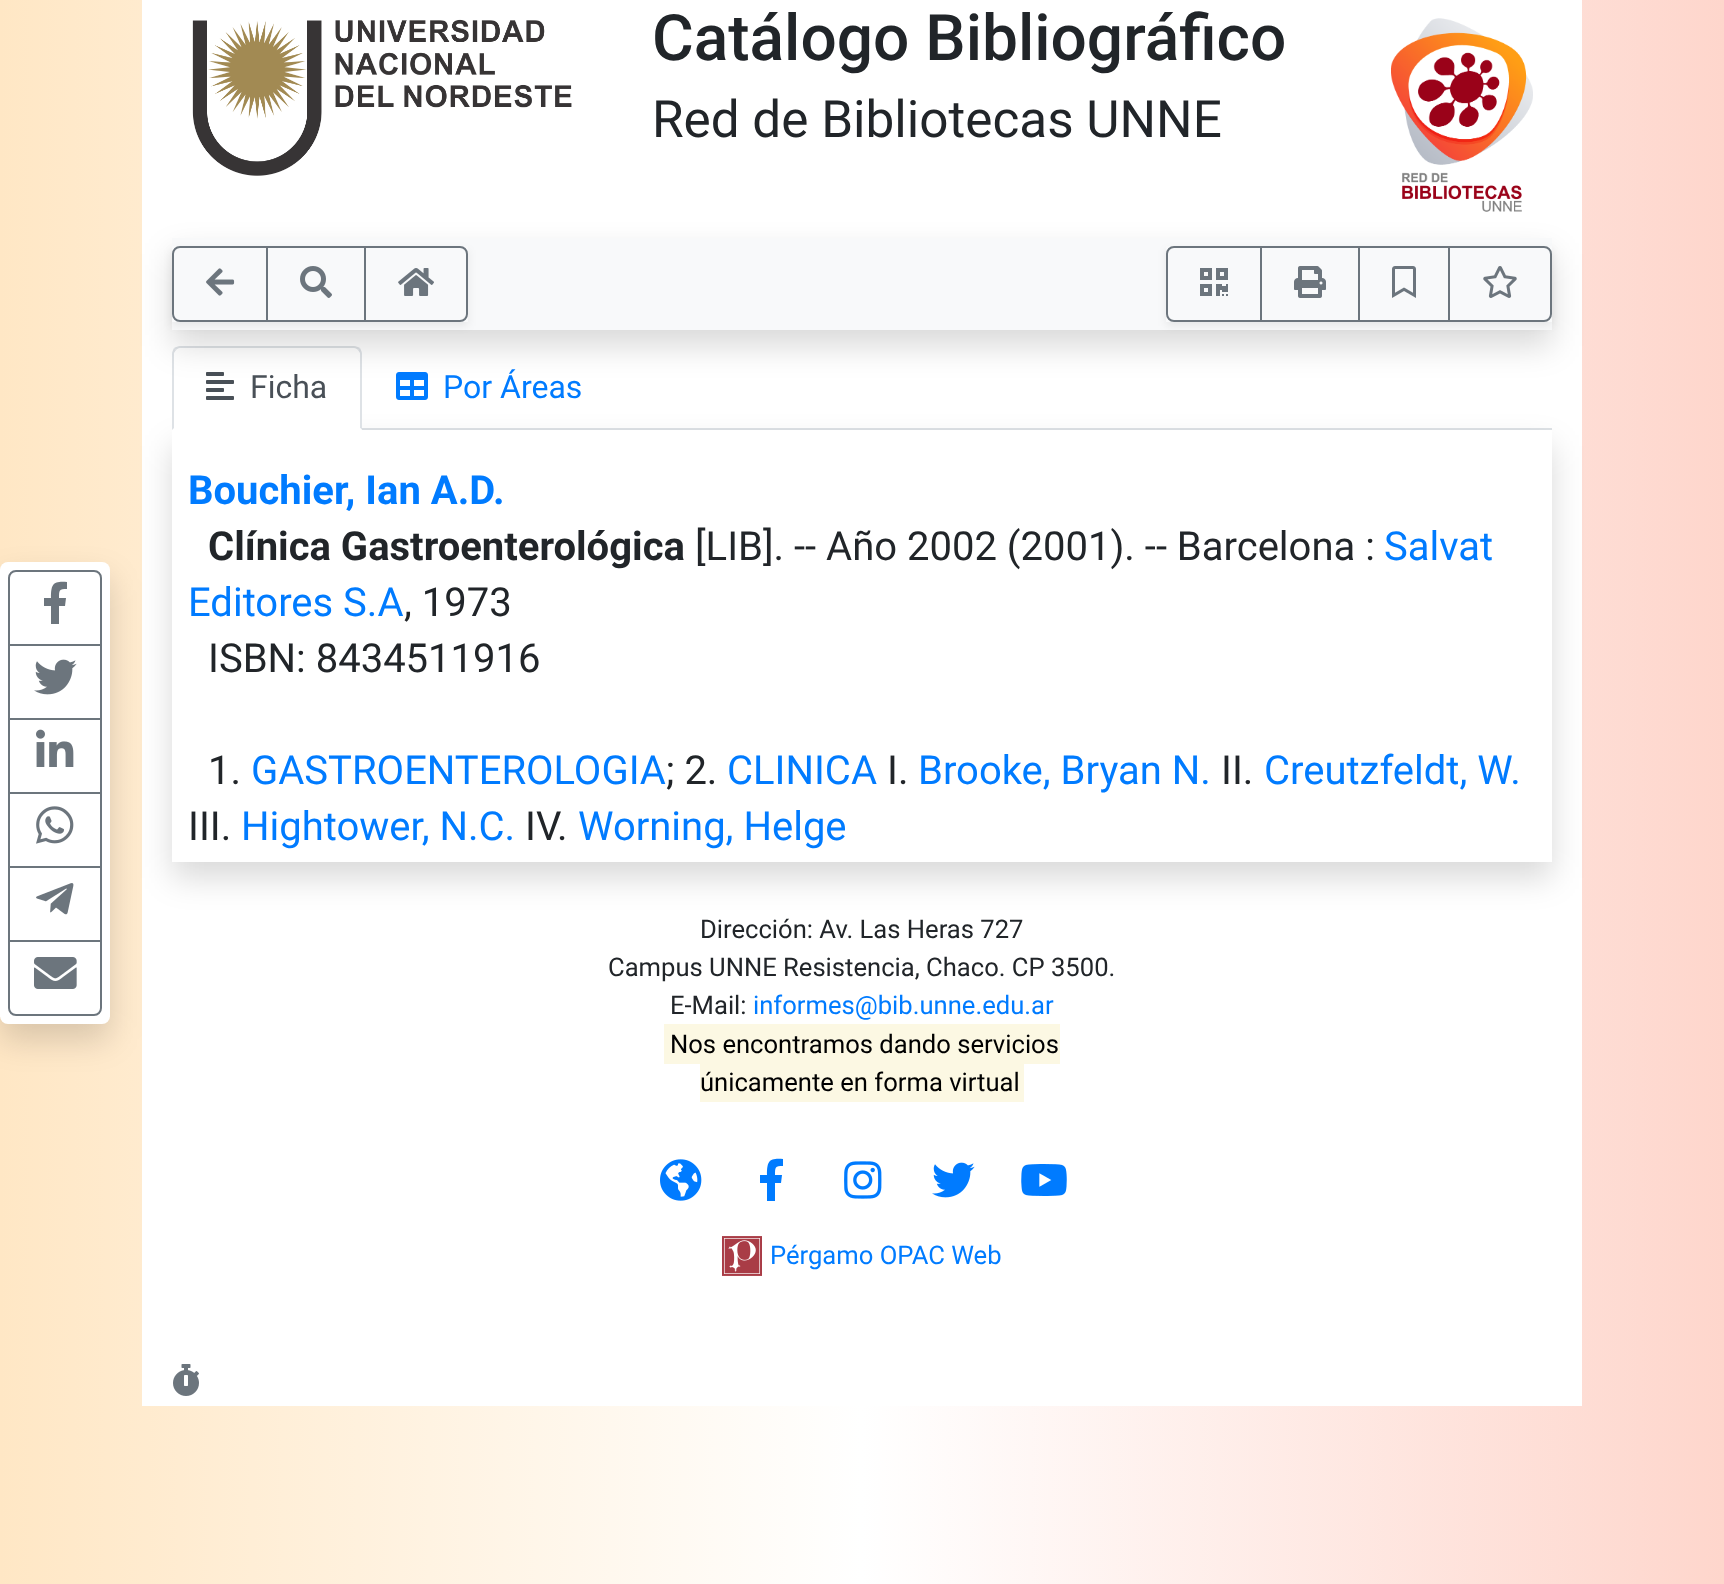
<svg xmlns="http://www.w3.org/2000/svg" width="1724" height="1584">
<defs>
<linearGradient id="g1" gradientUnits="userSpaceOnUse" x1="1724" y1="703" x2="0" y2="703"><stop offset="0" stop-color="#fed6cc"/><stop offset="0.5" stop-color="#fff"/><stop offset="1" stop-color="#ffe7c5"/></linearGradient>
<clipPath id="clip1"><path d="M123 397h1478v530h-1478zm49 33h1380v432h-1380z" clip-rule="evenodd"/></clipPath>
<clipPath id="clip2"><path d="M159 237h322v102h-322zm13 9h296v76h-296z" clip-rule="evenodd"/></clipPath>
<clipPath id="clip3"><path d="M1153 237h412v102h-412zm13 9h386v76h-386z" clip-rule="evenodd"/></clipPath>
</defs>
<rect width="100%" height="100%" fill="#fff"/>
<rect width="1724" height="1584" fill="url(#g1)"/>
<rect x="142" width="1440" height="1406" fill="#fff"/>
<image x="192" y="19" width="380" height="157" href="media/1.png"/>
<text x="652" y="60" style="font-family:Roboto;font-size:64px;font-weight:500;fill:#212529">Catálogo Bibliográfico</text>
<text x="652" y="137" style="font-family:Roboto;font-size:51.25px;fill:#212529">Red de Bibliotecas UNNE</text>
<image x="1391" y="18" width="142" height="194" href="media/2.png"/>
<rect y="578" width="110" height="462" rx="8" fill="#00000026" filter="blur(16px)"/>
<rect y="562" width="110" height="462" rx="8" fill="#fff"/>
<path d="M16 571h78c4 0 7 3 7 7v67h-92v-67c0-4 3-7 7-7z" fill="none" stroke="#6c757d" stroke-width="2"/>
<path d="M65 606h-6v18h-8v-18h-7v-8h7c0-14 2-17 16-16v7c-8 0-8 1-8 9h7z" fill="#6c757d"/>
<rect x="9" y="645" width="92" height="74" fill="none" stroke="#6c757d" stroke-width="2"/>
<image x="34" y="659" width="43" height="36" href="media/3.png"/>
<rect x="9" y="719" width="92" height="74" fill="none" stroke="#6c757d" stroke-width="2"/>
<image x="36" y="729" width="38" height="38" href="media/4.png"/>
<rect x="9" y="793" width="92" height="74" fill="none" stroke="#6c757d" stroke-width="2"/>
<image x="36" y="806" width="38" height="38" href="media/5.png"/>
<rect x="9" y="867" width="92" height="74" fill="none" stroke="#6c757d" stroke-width="2"/>
<image x="36" y="883" width="38" height="32" href="media/6.png"/>
<path d="M9 941h92v67c0 4-3 7-7 7h-78c-4 0-7-3-7-7z" fill="none" stroke="#6c757d" stroke-width="2"/>
<image x="34" y="957" width="43" height="32" href="media/7.png"/>
<rect x="362" y="428" width="1190" height="2" fill="#dee2e6"/>
<g clip-path="url(#clip1)">
<rect x="172" y="446" width="1380" height="432" fill="#00000026" filter="blur(16px)"/>
</g>
<path d="M180 346h174c4.5 0 8 3.5 8 8v76h-190v-76c0-4.5 3.5-8 8-8z" fill="#fff"/>
<path d="M180 346c-2 0-4 1-6 2l2 2c1-1 2-2 4-2h174c2 0 3 1 4 2l2-2c-2-1-4-2-6-2z" fill="#dee2e6"/>
<path d="M362 430v-76c0-2-1-4-2-6l-2 2l2 3v75z" fill="#dee2e6"/>
<path d="M362 430l-2-2h-186l-2 2z" fill="#fff"/>
<path d="M172 430l2-2v-75l2-3l-2-2c-1 2-2 4-2 6z" fill="#dee2e6"/>
<image x="206" y="372" width="28" height="28" href="media/15.png"/>
<image x="396" y="372" width="32" height="28" href="media/16.png"/>
<rect x="172" y="254" width="1380" height="92" fill="#00000026" filter="blur(16px)"/>
<rect x="172" y="238" width="1380" height="92" fill="#f8f9fa"/>
<g clip-path="url(#clip2)">
<rect x="172" y="250" width="296" height="76" fill="#00000012" filter="blur(4px)"/>
</g>
<path d="M180 247h87v74h-87c-4 0-7-3-7-7v-60c0-4 3-7 7-7z" fill="none" stroke="#6c757d" stroke-width="2"/>
<image x="206" y="268" width="29" height="28" href="media/8.png"/>
<rect x="267" y="247" width="98" height="74" fill="none" stroke="#6c757d" stroke-width="2"/>
<image x="300" y="266" width="32" height="32" href="media/9.png"/>
<path d="M365 247h95c4 0 7 3 7 7v60c0 4-3 7-7 7h-95z" fill="none" stroke="#6c757d" stroke-width="2"/>
<image x="398" y="268" width="36" height="28" href="media/10.png"/>
<g clip-path="url(#clip3)">
<rect x="1166" y="250" width="386" height="76" fill="#00000012" filter="blur(4px)"/>
</g>
<path d="M1174 247h87v74h-87c-4 0-7-3-7-7v-60c0-4 3-7 7-7z" fill="none" stroke="#6c757d" stroke-width="2"/>
<image x="1200" y="268" width="28" height="28" href="media/11.png"/>
<rect x="1261" y="247" width="98" height="74" fill="none" stroke="#6c757d" stroke-width="2"/>
<image x="1294" y="266" width="32" height="32" href="media/12.png"/>
<rect x="1359" y="247" width="90" height="74" fill="none" stroke="#6c757d" stroke-width="2"/>
<image x="1392" y="266" width="24" height="32" href="media/13.png"/>
<path d="M1449 247h95c4 0 7 3 7 7v60c0 4-3 7-7 7h-95z" fill="none" stroke="#6c757d" stroke-width="2"/>
<image x="1483" y="266" width="34" height="32" href="media/14.png"/>
<text x="250" y="398" style="font-family:Roboto;font-size:32px;fill:#495057">Ficha</text>
<text x="443" y="398" style="font-family:Roboto;font-size:32px;fill:#007bff">Por Áreas</text>
<text x="188" y="504" style="font-family:Roboto;font-size:40px;font-weight:bold;fill:#007bff">Bouchier, Ian A.D.</text>
<text x="208" y="560" style="font-family:Roboto;font-size:40px;font-weight:bold;fill:#212529">Clínica Gastroenterológica</text>
<text x="695" y="560" style="font-family:Roboto;font-size:40px;fill:#212529">[LIB]. -- Año 2002 (2001). -- Barcelona :</text>
<text x="1384" y="560" style="font-family:Roboto;font-size:40px;fill:#007bff">Salvat</text>
<text x="188" y="616" style="font-family:Roboto;font-size:40px;fill:#007bff">Editores S.A</text>
<text x="404" y="616" style="font-family:Roboto;font-size:40px;fill:#212529">, 1973</text>
<text x="208" y="672" style="font-family:Roboto;font-size:40px;fill:#212529">ISBN: 8434511916</text>
<text x="208" y="784" style="font-family:Roboto;font-size:40px;fill:#212529">1.</text>
<text x="251" y="784" style="font-family:Roboto;font-size:40px;fill:#007bff">GASTROENTEROLOGIA</text>
<text x="666" y="784" style="font-family:Roboto;font-size:40px;fill:#212529">; 2.</text>
<text x="727" y="784" style="font-family:Roboto;font-size:40px;fill:#007bff">CLINICA</text>
<text x="887" y="784" style="font-family:Roboto;font-size:40px;fill:#212529">I.</text>
<text x="918" y="784" style="font-family:Roboto;font-size:40px;fill:#007bff">Brooke, Bryan N.</text>
<text x="1221" y="784" style="font-family:Roboto;font-size:40px;fill:#212529">II.</text>
<text x="1264" y="784" style="font-family:Roboto;font-size:40px;fill:#007bff">Creutzfeldt, W.</text>
<text x="188" y="840" style="font-family:Roboto;font-size:40px;fill:#212529">III.</text>
<text x="241" y="840" style="font-family:Roboto;font-size:40px;fill:#007bff">Hightower, N.C.</text>
<text x="525" y="840" style="font-family:Roboto;font-size:40px;fill:#212529">IV.</text>
<text x="578" y="840" style="font-family:Roboto;font-size:40px;fill:#007bff">Worning, Helge</text>
<text x="700" y="938" style="font-family:Roboto;font-size:25.6px;fill:#212529">Dirección: Av. Las Heras 727</text>
<text x="608" y="976" style="font-family:Roboto;font-size:25.6px;fill:#212529">Campus UNNE Resistencia, Chaco. CP 3500.</text>
<text x="670" y="1014" style="font-family:Roboto;font-size:25.6px;fill:#212529">E-Mail:</text>
<text x="753" y="1014" style="font-family:Roboto;font-size:25.6px;fill:#007bff">informes@bib.unne.edu.ar</text>
<rect x="664" y="1024" width="396" height="40" fill="#fcf8e3"/>
<text x="670" y="1053" style="font-family:Roboto;font-size:25.6px;fill:#000">Nos encontramos dando servicios</text>
<rect x="700" y="1064" width="324" height="38" fill="#fcf8e3"/>
<text x="700" y="1091" style="font-family:Roboto;font-size:25.6px;fill:#000">únicamente en forma virtual</text>
<image x="660" y="1159" width="42" height="42" href="media/17.png"/>
<path d="M781 1183h-6v18h-8v-18h-7v-8h7c0-14 2-17 16-16v7c-8 0-8 1-8 9h7z" fill="#007bff"/>
<image x="844" y="1161" width="38" height="38" href="media/18.png"/>
<image x="932" y="1162" width="43" height="36" href="media/19.png"/>
<image x="1021" y="1164" width="46" height="32" href="media/20.png"/>
<image x="722" y="1236" width="40" height="40" href="media/21.png"/>
<text x="770" y="1264" style="font-family:Roboto;font-size:25.6px;fill:#007bff">Pérgamo OPAC Web</text>
<image x="173" y="1364" width="26" height="32" href="media/22.png"/>
</svg>
